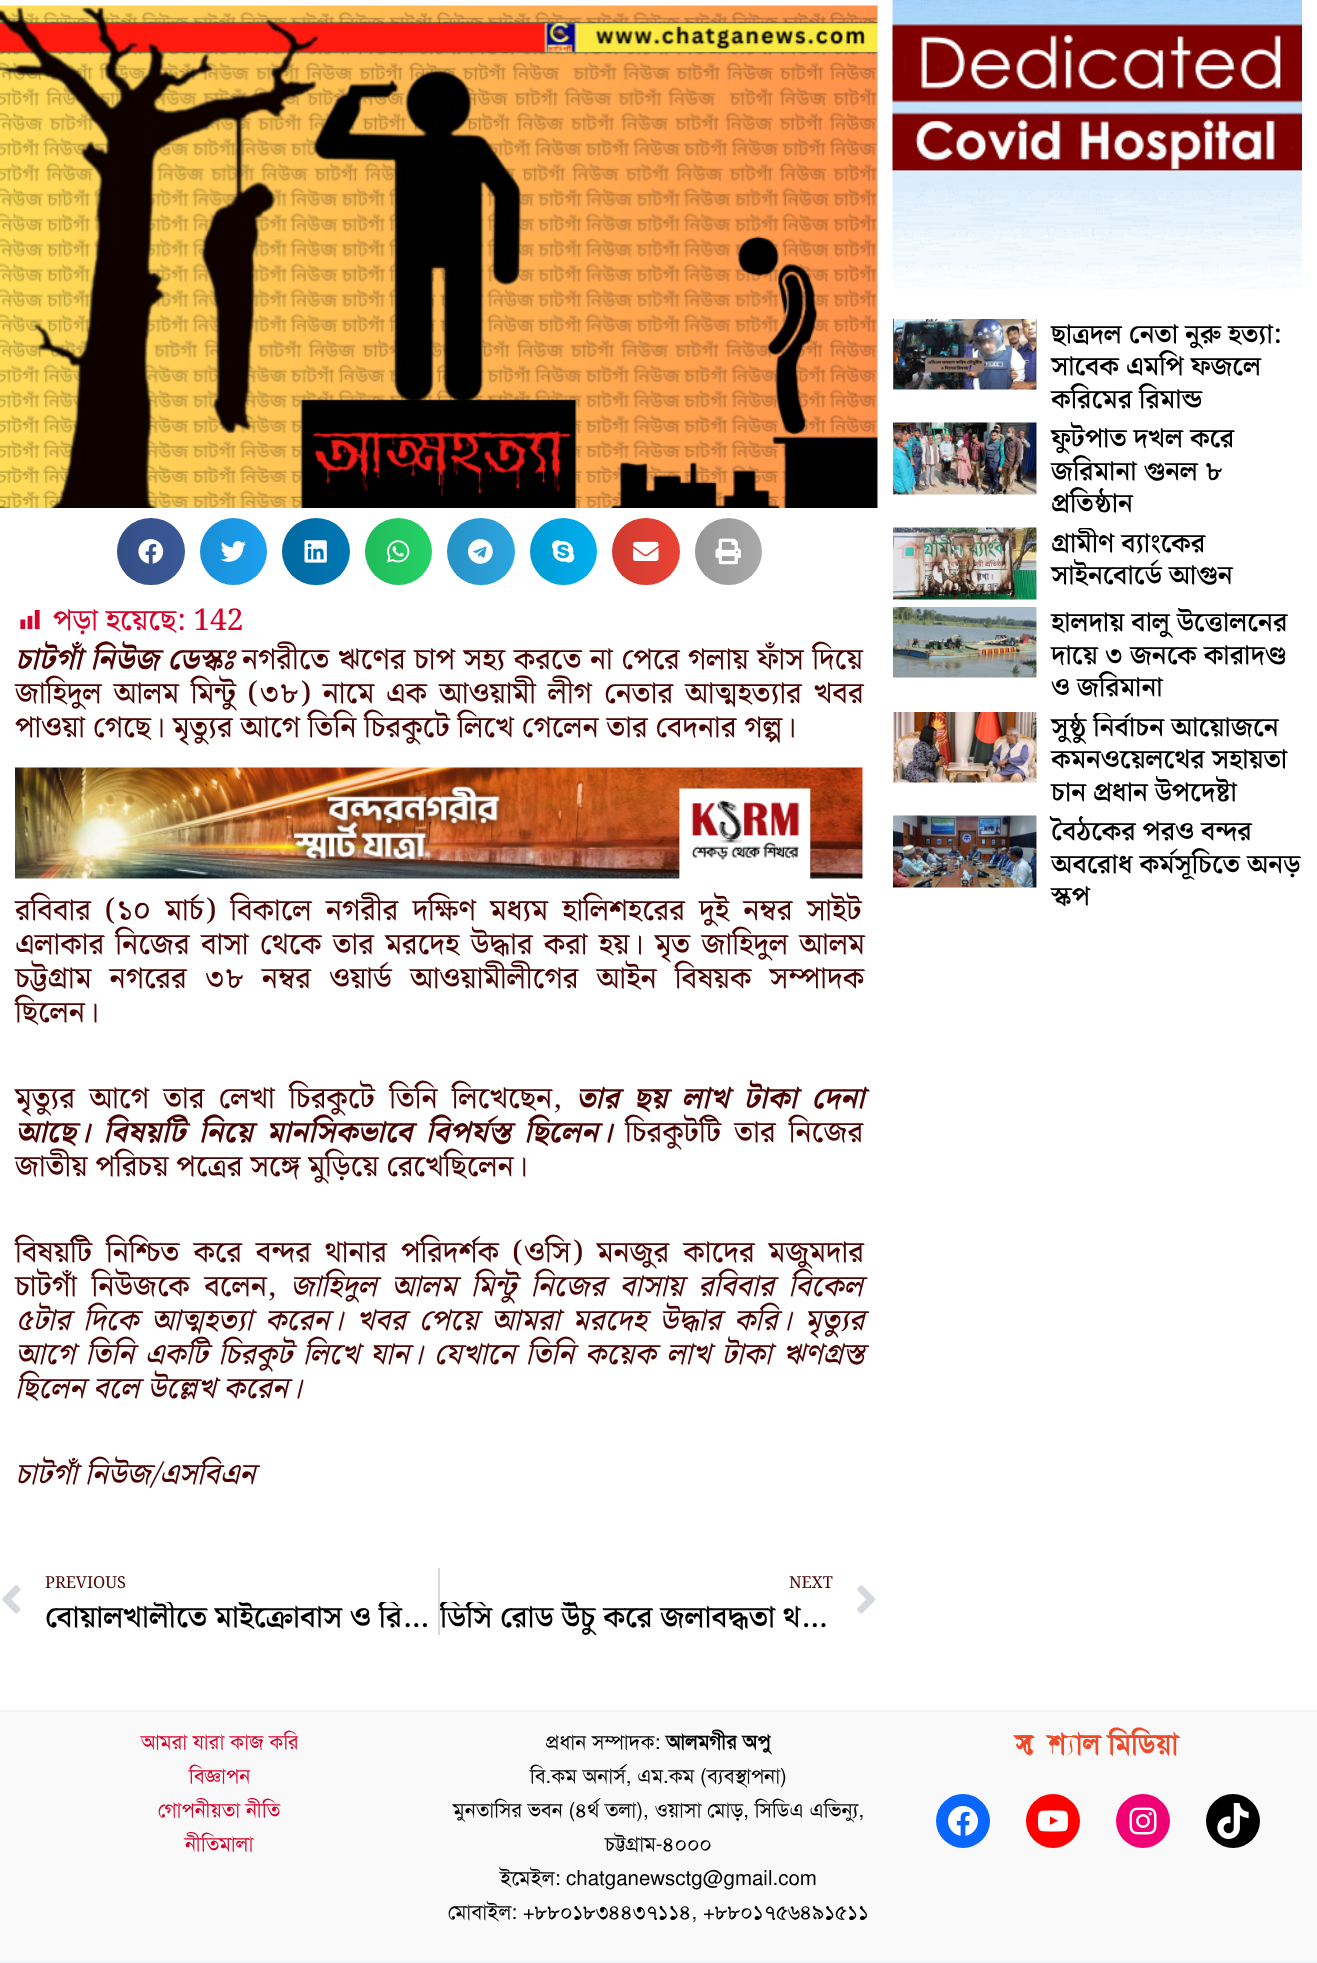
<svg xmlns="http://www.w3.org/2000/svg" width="1317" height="1963">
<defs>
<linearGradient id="g1" gradientUnits="userSpaceOnUse" x1="117" y1="551" x2="185" y2="551"><stop offset="0" stop-color="#000" stop-opacity="0.12"/><stop offset="1" stop-color="#000" stop-opacity="0"/></linearGradient>
<linearGradient id="g2" gradientUnits="userSpaceOnUse" x1="200" y1="551" x2="267" y2="551"><stop offset="0" stop-color="#000" stop-opacity="0.12"/><stop offset="1" stop-color="#000" stop-opacity="0"/></linearGradient>
<linearGradient id="g3" gradientUnits="userSpaceOnUse" x1="282" y1="551" x2="350" y2="551"><stop offset="0" stop-color="#000" stop-opacity="0.12"/><stop offset="1" stop-color="#000" stop-opacity="0"/></linearGradient>
<linearGradient id="g4" gradientUnits="userSpaceOnUse" x1="365" y1="551" x2="432" y2="551"><stop offset="0" stop-color="#000" stop-opacity="0.12"/><stop offset="1" stop-color="#000" stop-opacity="0"/></linearGradient>
<linearGradient id="g5" gradientUnits="userSpaceOnUse" x1="447" y1="551" x2="515" y2="551"><stop offset="0" stop-color="#000" stop-opacity="0.12"/><stop offset="1" stop-color="#000" stop-opacity="0"/></linearGradient>
<linearGradient id="g6" gradientUnits="userSpaceOnUse" x1="530" y1="551" x2="597" y2="551"><stop offset="0" stop-color="#000" stop-opacity="0.12"/><stop offset="1" stop-color="#000" stop-opacity="0"/></linearGradient>
<linearGradient id="g7" gradientUnits="userSpaceOnUse" x1="612" y1="551" x2="680" y2="551"><stop offset="0" stop-color="#000" stop-opacity="0.12"/><stop offset="1" stop-color="#000" stop-opacity="0"/></linearGradient>
<linearGradient id="g8" gradientUnits="userSpaceOnUse" x1="695" y1="551" x2="762" y2="551"><stop offset="0" stop-color="#000" stop-opacity="0.12"/><stop offset="1" stop-color="#000" stop-opacity="0"/></linearGradient>
<clipPath id="clip1"><rect x="45" y="1602" width="393" height="33"/></clipPath>
<clipPath id="clip2"><rect x="440" y="1602" width="393" height="33"/></clipPath>
<clipPath id="clip3"><rect x="893" y="528" width="409" height="72"/></clipPath>
<clipPath id="clip4"><rect x="893" y="608" width="409" height="97"/></clipPath>
<clipPath id="clip5"><rect x="893" y="713" width="409" height="96"/></clipPath>
<clipPath id="clip6"><rect x="893" y="816" width="409" height="98"/></clipPath>
</defs>
<rect width="100%" height="100%" fill="#fff"/>
<image x="0" y="5" width="878" height="503" href="media/1.png"/>
<rect x="117" y="518" width="68" height="67" rx="33.5" fill="#3b5998"/>
<rect x="117" y="518" width="68" height="67" rx="33.5" fill="url(#g1)"/>
<image x="138" y="539" width="26" height="25" href="media/2.png"/>
<circle cx="233.5" cy="551.5" r="33.5" fill="#1da1f2"/>
<circle cx="233.5" cy="551.5" r="33.5" fill="url(#g2)"/>
<image x="220" y="541" width="26" height="21" href="media/3.png"/>
<rect x="282" y="518" width="68" height="67" rx="33.5" fill="#0077b5"/>
<rect x="282" y="518" width="68" height="67" rx="33.5" fill="url(#g3)"/>
<image x="304" y="540" width="23" height="23" href="media/4.png"/>
<circle cx="398.5" cy="551.5" r="33.5" fill="#25d366"/>
<circle cx="398.5" cy="551.5" r="33.5" fill="url(#g4)"/>
<image x="387" y="540" width="23" height="23" href="media/5.png"/>
<rect x="447" y="518" width="68" height="67" rx="33.5" fill="#2ca5e0"/>
<rect x="447" y="518" width="68" height="67" rx="33.5" fill="url(#g5)"/>
<image x="468" y="539" width="25" height="25" href="media/6.png"/>
<circle cx="563.5" cy="551.5" r="33.5" fill="#00aff0"/>
<circle cx="563.5" cy="551.5" r="33.5" fill="url(#g6)"/>
<image x="552" y="540" width="23" height="23" href="media/7.png"/>
<rect x="612" y="518" width="68" height="67" rx="33.5" fill="#ea4335"/>
<rect x="612" y="518" width="68" height="67" rx="33.5" fill="url(#g7)"/>
<image x="633" y="541" width="26" height="20" href="media/8.png"/>
<circle cx="728.5" cy="551.5" r="33.5" fill="#aaa"/>
<circle cx="728.5" cy="551.5" r="33.5" fill="url(#g8)"/>
<image x="715" y="538" width="26" height="27" href="media/9.png"/>
<image x="20" y="609" width="20" height="21" href="media/10.png"/>
<text x="53" y="630" style="font-family:Noto Serif Bengali;font-size:30px;font-weight:500;fill:#d2042d">পড়া হয়েছে: 142</text>
<text x="15" y="669" word-spacing="0.75" style="font-family:Noto Serif Bengali;font-size:30px;font-weight:bold;font-style:italic;fill:#4a0404">চাটগাঁ নিউজ ডেস্কঃ</text>
<text x="242" y="669" word-spacing="0.75" style="font-family:Noto Serif Bengali;font-size:30px;font-weight:500;fill:#4a0404">নগরীতে ঋণের চাপ সহ্য করতে না পেরে গলায় ফাঁস দিয়ে</text>
<text x="15" y="703" word-spacing="4.25" style="font-family:Noto Serif Bengali;font-size:30px;font-weight:500;fill:#4a0404">জাহিদুল আলম মিন্টু (৩৮) নামে এক আওয়ামী লীগ নেতার আত্মহত্যার খবর</text>
<text x="15" y="737" style="font-family:Noto Serif Bengali;font-size:30px;font-weight:500;fill:#4a0404">পাওয়া গেছে। মৃত্যুর আগে তিনি চিরকুটে লিখে গেলেন তার বেদনার গল্প।</text>
<image x="15" y="767" width="848" height="112" href="media/11.png"/>
<text x="15" y="920" word-spacing="6.5" style="font-family:Noto Serif Bengali;font-size:30px;font-weight:500;fill:#4a0404">রবিবার (১০ মার্চ) বিকালে নগরীর দক্ষিণ মধ্যম হালিশহরের দুই নম্বর সাইট</text>
<text x="15" y="954" word-spacing="3.5" style="font-family:Noto Serif Bengali;font-size:30px;font-weight:500;fill:#4a0404">এলাকার নিজের বাসা থেকে তার মরদেহ উদ্ধার করা হয়। মৃত জাহিদুল আলম</text>
<text x="15" y="988" word-spacing="10.5" style="font-family:Noto Serif Bengali;font-size:30px;font-weight:500;fill:#4a0404">চট্টগ্রাম নগরের ৩৮ নম্বর ওয়ার্ড আওয়ামীলীগের আইন বিষয়ক সম্পাদক</text>
<text x="15" y="1022" style="font-family:Noto Serif Bengali;font-size:30px;font-weight:500;fill:#4a0404">ছিলেন।</text>
<text x="15" y="1108" word-spacing="6.5" style="font-family:Noto Serif Bengali;font-size:30px;font-weight:500;fill:#4a0404">মৃত্যুর আগে তার লেখা চিরকুটে তিনি লিখেছেন,</text>
<text x="576" y="1108" word-spacing="6.5" style="font-family:Noto Serif Bengali;font-size:30px;font-weight:bold;font-style:italic;fill:#4a0404">তার ছয় লাখ টাকা দেনা</text>
<text x="15" y="1142" word-spacing="5.5" style="font-family:Noto Serif Bengali;font-size:30px;font-weight:bold;font-style:italic;fill:#4a0404">আছে। বিষয়টি নিয়ে মানসিকভাবে বিপর্যস্ত ছিলেন।</text>
<text x="625" y="1142" word-spacing="5.5" style="font-family:Noto Serif Bengali;font-size:30px;font-weight:500;fill:#4a0404">চিরকুটটি তার নিজের</text>
<text x="15" y="1176" style="font-family:Noto Serif Bengali;font-size:30px;font-weight:500;fill:#4a0404">জাতীয় পরিচয় পত্রের সঙ্গে মুড়িয়ে রেখেছিলেন।</text>
<text x="15" y="1262" word-spacing="6.25" style="font-family:Noto Serif Bengali;font-size:30px;font-weight:500;fill:#4a0404">বিষয়টি নিশ্চিত করে বন্দর থানার পরিদর্শক (ওসি) মনজুর কাদের মজুমদার</text>
<text x="15" y="1296" word-spacing="6.75" style="font-family:Noto Serif Bengali;font-size:30px;font-weight:500;fill:#4a0404">চাটগাঁ নিউজকে বলেন,</text>
<text x="290" y="1296" word-spacing="6.75" style="font-family:Noto Serif Bengali;font-size:30px;font-weight:500;font-style:italic;fill:#4a0404">জাহিদুল আলম মিন্টু নিজের বাসায় রবিবার বিকেল</text>
<text x="15" y="1330" word-spacing="5" style="font-family:Noto Serif Bengali;font-size:30px;font-weight:500;font-style:italic;fill:#4a0404">৫টার দিকে আত্মহত্যা করেন। খবর পেয়ে আমরা মরদেহ উদ্ধার করি। মৃত্যুর</text>
<text x="15" y="1364" word-spacing="2.9" style="font-family:Noto Serif Bengali;font-size:30px;font-weight:500;font-style:italic;fill:#4a0404">আগে তিনি একটি চিরকুট লিখে যান। যেখানে তিনি কয়েক লাখ টাকা ঋণগ্রস্ত</text>
<text x="15" y="1398" style="font-family:Noto Serif Bengali;font-size:30px;font-weight:500;font-style:italic;fill:#4a0404">ছিলেন বলে উল্লেখ করেন।</text>
<text x="15" y="1484" style="font-family:Noto Serif Bengali;font-size:30px;font-weight:500;font-style:italic;fill:#4a0404">চাটগাঁ নিউজ/এসবিএন</text>
<image x="2" y="1585" width="19" height="29" href="media/12.png"/>
<text x="45" y="1588" style="font-family:Noto Serif Bengali;font-size:16.5px;fill:#4a0404">PREVIOUS</text>
<g clip-path="url(#clip1)">
<text x="45" y="1627" style="font-family:Noto Serif Bengali;font-size:30px;font-weight:600;fill:#000">বোয়ালখালীতে মাইক্রোবাস ও রি…</text>
</g>
<rect x="438" y="1568" width="2" height="67" fill="#d5d8dc"/>
<text x="789" y="1588" style="font-family:Noto Serif Bengali;font-size:16.5px;fill:#4a0404">NEXT</text>
<g clip-path="url(#clip2)">
<text x="440" y="1627" style="font-family:Noto Serif Bengali;font-size:30px;font-weight:600;fill:#000">ডিসি রোড উঁচু করে জলাবদ্ধতা থ…</text>
</g>
<image x="857" y="1585" width="19" height="29" href="media/13.png"/>
<image x="892" y="0" width="410" height="289" href="media/14.png"/>
<image x="893" y="319" width="144" height="71" href="media/15.png"/>
<text x="1051" y="343" style="font-family:Noto Serif Bengali;font-size:27px;font-weight:600;fill:#000">ছাত্রদল নেতা নুরু হত্যা:</text>
<text x="1051" y="375" style="font-family:Noto Serif Bengali;font-size:27px;font-weight:600;fill:#000">সাবেক এমপি ফজলে</text>
<text x="1051" y="408" style="font-family:Noto Serif Bengali;font-size:27px;font-weight:600;fill:#000">করিমের রিমান্ড</text>
<image x="893" y="422" width="144" height="73" href="media/16.png"/>
<text x="1051" y="447" style="font-family:Noto Serif Bengali;font-size:27px;font-weight:600;fill:#000">ফুটপাত দখল করে</text>
<text x="1051" y="480" style="font-family:Noto Serif Bengali;font-size:27px;font-weight:600;fill:#000">জরিমানা গুনল ৮</text>
<text x="1051" y="512" style="font-family:Noto Serif Bengali;font-size:27px;font-weight:600;fill:#000">প্রতিষ্ঠান</text>
<image x="893" y="527" width="144" height="73" href="media/17.png"/>
<g clip-path="url(#clip3)">
<text x="1051" y="552" style="font-family:Noto Serif Bengali;font-size:27px;font-weight:600;fill:#000">গ্রামীণ ব্যাংকের</text>
</g>
<text x="1051" y="584" style="font-family:Noto Serif Bengali;font-size:27px;font-weight:600;fill:#000">সাইনবোর্ডে আগুন</text>
<image x="893" y="607" width="144" height="71" href="media/18.png"/>
<g clip-path="url(#clip4)">
<text x="1051" y="631" style="font-family:Noto Serif Bengali;font-size:27px;font-weight:600;fill:#000">হালদায় বালু উত্তোলনের</text>
</g>
<text x="1051" y="664" style="font-family:Noto Serif Bengali;font-size:27px;font-weight:600;fill:#000">দায়ে ৩ জনকে কারাদণ্ড</text>
<text x="1051" y="696" style="font-family:Noto Serif Bengali;font-size:27px;font-weight:600;fill:#000">ও জরিমানা</text>
<image x="893" y="712" width="144" height="71" href="media/19.png"/>
<g clip-path="url(#clip5)">
<text x="1051" y="736" style="font-family:Noto Serif Bengali;font-size:27px;font-weight:600;fill:#000">সুষ্ঠু নির্বাচন আয়োজনে</text>
</g>
<text x="1051" y="768" style="font-family:Noto Serif Bengali;font-size:27px;font-weight:600;fill:#000">কমনওয়েলথের সহায়তা</text>
<text x="1051" y="801" style="font-family:Noto Serif Bengali;font-size:27px;font-weight:600;fill:#000">চান প্রধান উপদেষ্টা</text>
<image x="893" y="815" width="144" height="73" href="media/20.png"/>
<g clip-path="url(#clip6)">
<text x="1051" y="840" style="font-family:Noto Serif Bengali;font-size:27px;font-weight:600;fill:#000">বৈঠকের পরও বন্দর</text>
</g>
<text x="1051" y="873" style="font-family:Noto Serif Bengali;font-size:27px;font-weight:600;fill:#000">অবরোধ কর্মসূচিতে অনড়</text>
<text x="1051" y="905" style="font-family:Noto Serif Bengali;font-size:27px;font-weight:600;fill:#000">স্কপ</text>
<rect y="1712" width="1317" height="249" fill="#f9f9f9"/>
<rect y="1710" width="1317" height="2" fill="#f2f5f7"/>
<text x="141" y="1749" style="font-family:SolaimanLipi;font-size:20.5px;fill:#d2042d">আমরা যারা কাজ করি</text>
<text x="189" y="1783" style="font-family:SolaimanLipi;font-size:20.5px;fill:#d2042d">বিজ্ঞাপন</text>
<text x="158" y="1817" style="font-family:SolaimanLipi;font-size:20.5px;fill:#d2042d">গোপনীয়তা নীতি</text>
<text x="185" y="1851" style="font-family:SolaimanLipi;font-size:20.5px;fill:#d2042d">নীতিমালা</text>
<text x="546" y="1749" style="font-family:SolaimanLipi;font-size:20.5px;fill:#000">প্রধান সম্পাদক:</text>
<text x="666" y="1749" style="font-family:SolaimanLipi;font-size:20.5px;font-weight:bold;fill:#000">আলমগীর অপু</text>
<text x="530" y="1783" style="font-family:SolaimanLipi;font-size:20.5px;fill:#000">বি.কম অনার্স, এম.কম (ব্যবস্থাপনা)</text>
<text x="453" y="1817" style="font-family:SolaimanLipi;font-size:20.5px;fill:#000">মুনতাসির ভবন (৪র্থ তলা), ওয়াসা মোড়, সিডিএ এভিন্যু,</text>
<text x="605" y="1851" style="font-family:SolaimanLipi;font-size:20.5px;fill:#000">চট্টগ্রাম-৪০০০</text>
<text x="500" y="1885" style="font-family:SolaimanLipi;font-size:20.5px;fill:#000">ইমেইল: chatganewsctg@gmail.com</text>
<text x="448" y="1919" style="font-family:SolaimanLipi;font-size:20.5px;fill:#000">মোবাইল: +৮৮০১৮৩৪৪৩৭১১৪, +৮৮০১৭৫৬৪৯১৫১১</text>
<text x="1015" y="1754" style="font-family:SolaimanLipi;font-size:28.75px;font-weight:bold;fill:#ee4b2b">সোশ্যাল মিডিয়া</text>
<circle cx="963" cy="1821" r="27" fill="#0866ff"/>
<image x="948" y="1806" width="30" height="30" href="media/21.png"/>
<circle cx="1053" cy="1821" r="27" fill="#f00"/>
<image x="1038" y="1810" width="30" height="22" href="media/22.png"/>
<circle cx="1143" cy="1821" r="27" fill="#f00075"/>
<image x="1129" y="1807" width="28" height="28" href="media/23.png"/>
<circle cx="1233" cy="1821" r="27" fill="#000"/>
<image x="1217" y="1803" width="32" height="36" href="media/24.png"/>
<rect y="1961" width="1317" height="2" fill="#f2f5f7"/>
</svg>
